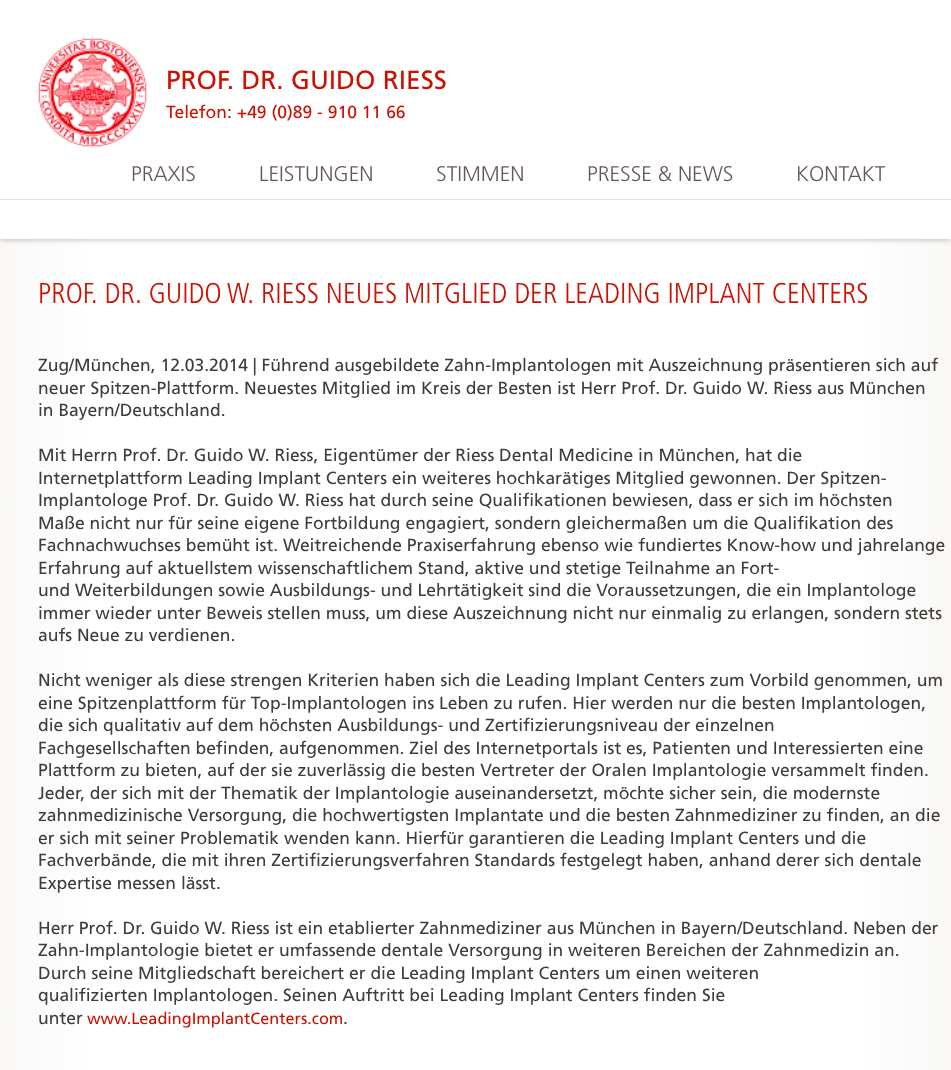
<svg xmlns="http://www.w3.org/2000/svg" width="951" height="1070">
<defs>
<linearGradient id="g1" gradientUnits="userSpaceOnUse" x1="0" y1="694" x2="951" y2="694"><stop offset="0" stop-color="#f9f8f7"/><stop offset="0.1" stop-color="#fff"/><stop offset="0.9" stop-color="#fff"/><stop offset="1" stop-color="#f9f8f7"/></linearGradient>
</defs>
<rect width="100%" height="100%" fill="#fff"/>
<rect y="239" width="951" height="831" fill="url(#g1)"/>
<rect width="951" height="239" fill="#0000004d" filter="blur(3px)"/>
<rect width="951" height="239" fill="#fff"/>
<image x="38" y="38" width="109" height="109" href="media/1.png"/>
<text x="166" y="89" style="font-family:Frutiger;font-size:26.25px;fill:#c10">PROF. DR. GUIDO RIESS</text>
<text x="166" y="118" style="font-family:Frutiger;font-size:17.5px;fill:#c10">Telefon: +49 (0)89 - 910 11 66</text>
<rect y="199" width="951" height="1" fill="#e6e2e1"/>
<text x="131" y="181" style="font-family:'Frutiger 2';font-size:21.25px;font-weight:300;fill:#665856">PRAXIS</text>
<text x="259" y="181" style="font-family:'Frutiger 2';font-size:21.25px;font-weight:300;fill:#665856">LEISTUNGEN</text>
<text x="436" y="181" style="font-family:'Frutiger 2';font-size:21.25px;font-weight:300;fill:#665856">STIMMEN</text>
<text x="587" y="181" style="font-family:'Frutiger 2';font-size:21.25px;font-weight:300;fill:#665856">PRESSE &amp; NEWS</text>
<text x="796" y="181" style="font-family:'Frutiger 2';font-size:21.25px;font-weight:300;fill:#665856">KONTAKT</text>
<text x="38" y="303" style="font-family:Frutiger;font-size:28.75px;font-weight:300;fill:#c10">PROF. DR. GUIDO W. RIESS NEUES MITGLIED DER LEADING IMPLANT CENTERS</text>
<text x="38" y="371" style="font-family:Frutiger;font-size:17.5px;fill:#403c3b">Zug/München, 12.03.2014 | Führend ausgebildete Zahn-Implantologen mit Auszeichnung präsentieren sich auf</text>
<text x="38" y="394" style="font-family:Frutiger;font-size:17.5px;fill:#403c3b">neuer Spitzen-Plattform. Neuestes Mitglied im Kreis der Besten ist Herr Prof. Dr. Guido W. Riess aus München</text>
<text x="38" y="416" style="font-family:Frutiger;font-size:17.5px;fill:#403c3b">in Bayern/Deutschland.</text>
<text x="38" y="461" style="font-family:Frutiger;font-size:17.5px;fill:#403c3b">Mit Herrn Prof. Dr. Guido W. Riess, Eigentümer der Riess Dental Medicine in München, hat die</text>
<text x="38" y="484" style="font-family:Frutiger;font-size:17.5px;fill:#403c3b">Internetplattform Leading Implant Centers ein weiteres hochkarätiges Mitglied gewonnen. Der Spitzen-</text>
<text x="38" y="506" style="font-family:Frutiger;font-size:17.5px;fill:#403c3b">Implantologe Prof. Dr. Guido W. Riess hat durch seine Qualifikationen bewiesen, dass er sich im höchsten</text>
<text x="38" y="529" style="font-family:Frutiger;font-size:17.5px;fill:#403c3b">Maße nicht nur für seine eigene Fortbildung engagiert, sondern gleichermaßen um die Qualifikation des</text>
<text x="38" y="551" style="font-family:Frutiger;font-size:17.5px;fill:#403c3b">Fachnachwuchses bemüht ist. Weitreichende Praxiserfahrung ebenso wie fundiertes Know-how und jahrelange</text>
<text x="38" y="574" style="font-family:Frutiger;font-size:17.5px;fill:#403c3b">Erfahrung auf aktuellstem wissenschaftlichem Stand, aktive und stetige Teilnahme an Fort-</text>
<text x="38" y="596" style="font-family:Frutiger;font-size:17.5px;fill:#403c3b">und Weiterbildungen sowie Ausbildungs- und Lehrtätigkeit sind die Voraussetzungen, die ein Implantologe</text>
<text x="38" y="619" style="font-family:Frutiger;font-size:17.5px;fill:#403c3b">immer wieder unter Beweis stellen muss, um diese Auszeichnung nicht nur einmalig zu erlangen, sondern stets</text>
<text x="38" y="641" style="font-family:Frutiger;font-size:17.5px;fill:#403c3b">aufs Neue zu verdienen.</text>
<text x="38" y="686" style="font-family:Frutiger;font-size:17.5px;fill:#403c3b">Nicht weniger als diese strengen Kriterien haben sich die Leading Implant Centers zum Vorbild genommen, um</text>
<text x="38" y="709" style="font-family:Frutiger;font-size:17.5px;fill:#403c3b">eine Spitzenplattform für Top-Implantologen ins Leben zu rufen. Hier werden nur die besten Implantologen,</text>
<text x="38" y="731" style="font-family:Frutiger;font-size:17.5px;fill:#403c3b">die sich qualitativ auf dem höchsten Ausbildungs- und Zertifizierungsniveau der einzelnen</text>
<text x="38" y="754" style="font-family:Frutiger;font-size:17.5px;fill:#403c3b">Fachgesellschaften befinden, aufgenommen. Ziel des Internetportals ist es, Patienten und Interessierten eine</text>
<text x="38" y="776" style="font-family:Frutiger;font-size:17.5px;fill:#403c3b">Plattform zu bieten, auf der sie zuverlässig die besten Vertreter der Oralen Implantologie versammelt finden.</text>
<text x="38" y="799" style="font-family:Frutiger;font-size:17.5px;fill:#403c3b">Jeder, der sich mit der Thematik der Implantologie auseinandersetzt, möchte sicher sein, die modernste</text>
<text x="38" y="821" style="font-family:Frutiger;font-size:17.5px;fill:#403c3b">zahnmedizinische Versorgung, die hochwertigsten Implantate und die besten Zahnmediziner zu finden, an die</text>
<text x="38" y="844" style="font-family:Frutiger;font-size:17.5px;fill:#403c3b">er sich mit seiner Problematik wenden kann. Hierfür garantieren die Leading Implant Centers und die</text>
<text x="38" y="866" style="font-family:Frutiger;font-size:17.5px;fill:#403c3b">Fachverbände, die mit ihren Zertifizierungsverfahren Standards festgelegt haben, anhand derer sich dentale</text>
<text x="38" y="889" style="font-family:Frutiger;font-size:17.5px;fill:#403c3b">Expertise messen lässt.</text>
<text x="38" y="934" style="font-family:Frutiger;font-size:17.5px;fill:#403c3b">Herr Prof. Dr. Guido W. Riess ist ein etablierter Zahnmediziner aus München in Bayern/Deutschland. Neben der</text>
<text x="38" y="956" style="font-family:Frutiger;font-size:17.5px;fill:#403c3b">Zahn-Implantologie bietet er umfassende dentale Versorgung in weiteren Bereichen der Zahnmedizin an.</text>
<text x="38" y="979" style="font-family:Frutiger;font-size:17.5px;fill:#403c3b">Durch seine Mitgliedschaft bereichert er die Leading Implant Centers um einen weiteren</text>
<text x="38" y="1001" style="font-family:Frutiger;font-size:17.5px;fill:#403c3b">qualifizierten Implantologen. Seinen Auftritt bei Leading Implant Centers finden Sie</text>
<text x="38" y="1024" style="font-family:Frutiger;font-size:17.5px;fill:#403c3b">unter</text>
<text x="87" y="1024" style="font-family:Frutiger;font-size:16.25px;fill:#c10">www.LeadingImplantCenters.com</text>
<text x="343" y="1024" style="font-family:Frutiger;font-size:17.5px;fill:#403c3b">.</text>
</svg>
